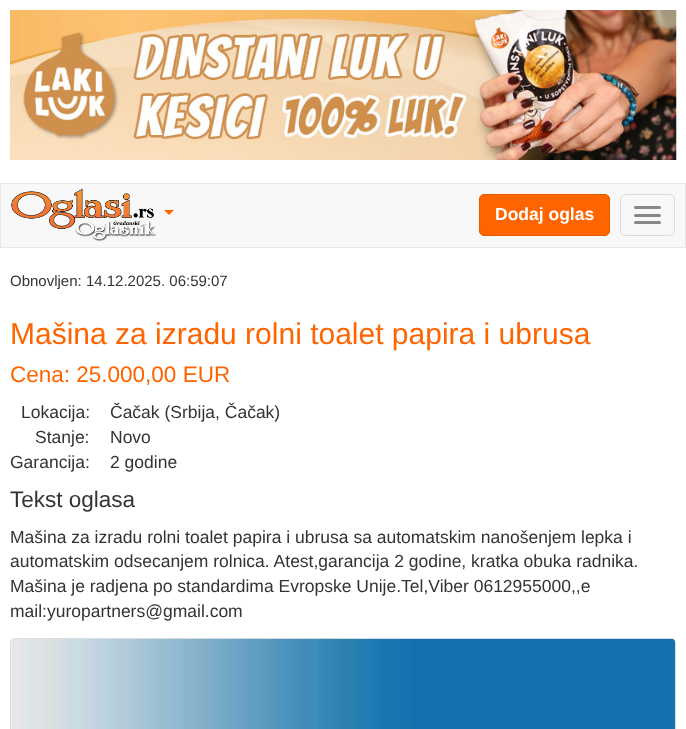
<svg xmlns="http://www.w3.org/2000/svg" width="686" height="729">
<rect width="100%" height="100%" fill="#fff"/>
<image x="10" y="10" width="667" height="150" href="media/1.png"/>
<rect x="0.5" y="183.5" width="685" height="64" fill="#f8f8f8" stroke="#e7e7e7"/>
<image x="11" y="188" width="145" height="54" href="media/2.png"/>
<path d="M164 210h10l-5 5z" fill="#fe6400"/>
<rect x="479.5" y="194.5" width="130" height="41" rx="4.5" fill="#fe6400" stroke="#e55a00"/>
<text x="495" y="220" style="font-family:Liberation Sans;font-size:17.5px;font-weight:bold;fill:#fff">Dodaj oglas</text>
<rect x="620.5" y="194.5" width="54" height="41" rx="4.5" fill="none" stroke="#ddd"/>
<rect x="634" y="206" width="27" height="3" rx="1.5" fill="#888"/>
<rect x="634" y="214" width="27" height="3" rx="1.5" fill="#888"/>
<rect x="634" y="221" width="27" height="3" rx="1.5" fill="#888"/>
<text x="10" y="286" style="font-family:Liberation Sans;font-size:15px;fill:#333">Obnovljen: 14.12.2025. 06:59:07</text>
<text x="10" y="344" style="font-family:Liberation Sans;font-size:30px;fill:#fe6400">Mašina za izradu rolni toalet papira i ubrusa</text>
<text x="10" y="382" style="font-family:Liberation Sans;font-size:22.5px;fill:#fe6400">Cena: 25.000,00 EUR</text>
<text x="21" y="418" style="font-family:Liberation Sans;font-size:17.5px;fill:#333">Lokacija:</text>
<text x="110" y="418" style="font-family:Liberation Sans;font-size:17.5px;fill:#333">Čačak (Srbija, Čačak)</text>
<text x="35" y="443" style="font-family:Liberation Sans;font-size:17.5px;fill:#333">Stanje:</text>
<text x="110" y="443" style="font-family:Liberation Sans;font-size:17.5px;fill:#333">Novo</text>
<text x="10" y="468" style="font-family:Liberation Sans;font-size:17.5px;fill:#333">Garancija:</text>
<text x="110" y="468" style="font-family:Liberation Sans;font-size:17.5px;fill:#333">2 godine</text>
<text x="10" y="507" style="font-family:Liberation Sans;font-size:22.5px;fill:#333">Tekst oglasa</text>
<text x="10" y="543" style="font-family:Liberation Sans;font-size:17.5px;fill:#333">Mašina za izradu rolni toalet papira i ubrusa sa automatskim nanošenjem lepka i</text>
<text x="10" y="567" style="font-family:Liberation Sans;font-size:17.5px;fill:#333">automatskim odsecanjem rolnica. Atest,garancija 2 godine, kratka obuka radnika.</text>
<text x="10" y="592" style="font-family:Liberation Sans;font-size:17.5px;fill:#333">Mašina je radjena po standardima Evropske Unije.Tel,Viber 0612955000,,e</text>
<text x="10" y="617" style="font-family:Liberation Sans;font-size:17.5px;fill:#333">mail:yuropartners@gmail.com</text>
<rect x="10.5" y="638.5" width="665" height="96" rx="4.5" fill="none" stroke="#ddd"/>
<image x="11" y="638" width="664" height="91" href="media/3.png"/>
</svg>
